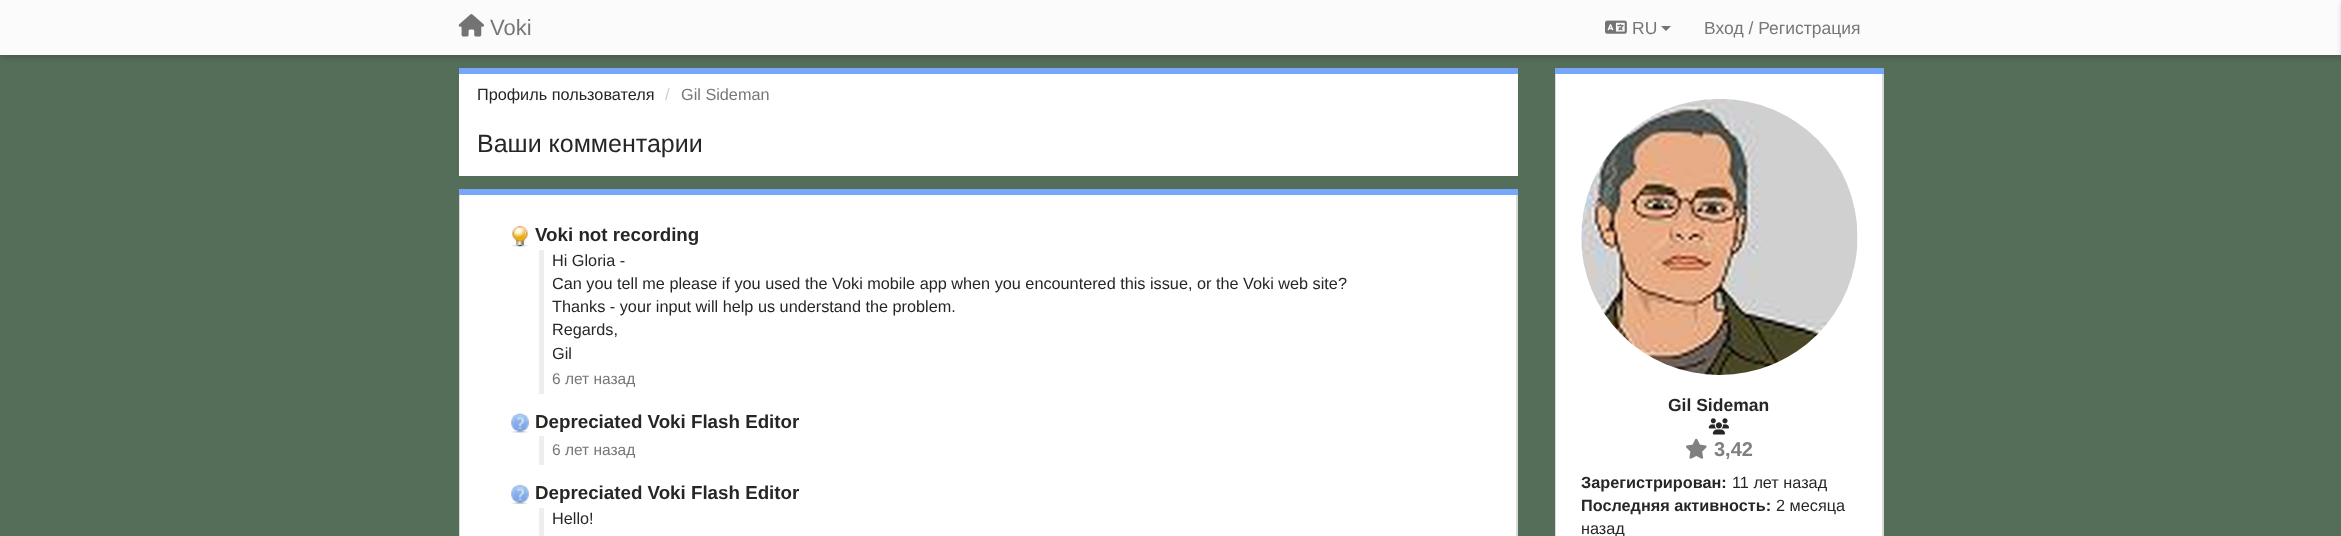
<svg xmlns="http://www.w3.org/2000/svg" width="2341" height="536">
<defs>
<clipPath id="clip1"><rect x="553" y="250" width="913" height="115"/></clipPath>
</defs>
<rect width="100%" height="100%" fill="#556e59"/>
<rect y="3" width="2341" height="55" fill="#00000026" filter="blur(2.5px)"/>
<rect width="2341" height="55" fill="#fbfbfb"/>
<image x="458" y="14" width="26" height="23" href="media/1.png"/>
<text x="490" y="35" style="font-family:Liberation Sans;font-size:22px;fill:#777">Voki</text>
<image x="1605" y="20" width="22" height="14" href="media/2.png"/>
<text x="1632" y="34" style="font-family:Liberation Sans;font-size:17.5px;fill:#777">RU</text>
<path d="M1661 26h10l-5 5z" fill="#737373"/>
<text x="1704" y="34" style="font-family:Liberation Sans;font-size:17.5px;fill:#777">Вход / Регистрация</text>
<rect x="2341" y="3" width="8" height="55" fill="#00000026" filter="blur(2.5px)"/>
<rect x="459" y="74" width="1059" height="102" fill="#fff"/>
<rect x="459" y="68" width="1059" height="6" fill="#76a7fa"/>
<text x="477" y="100" style="font-family:Liberation Sans;font-size:16.25px;fill:#262626">Профиль пользователя</text>
<text x="665" y="100" style="font-family:Liberation Sans;font-size:16.25px;fill:#ccc">/</text>
<text x="681" y="100" style="font-family:Liberation Sans;font-size:16.25px;fill:#777">Gil Sideman</text>
<text x="477" y="152" style="font-family:Liberation Sans;font-size:25px;fill:#262626">Ваши комментарии</text>
<rect x="459" y="189" width="1059" height="6" fill="#76a7fa"/>
<path d="M460 195h1056v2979c0 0-1 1-2 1h-1052c-1 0-2-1-2-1z" fill="#fff"/>
<path d="M459 195h1059v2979c0 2-2 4-4 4h-1052c-2 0-3-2-3-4zm1 0h1056v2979c0 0-1 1-2 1h-1052c-1 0-2-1-2-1z" fill="#d8d8d8" fill-rule="evenodd"/>
<image x="511" y="226" width="18" height="21" href="media/3.png"/>
<text x="535" y="241" style="font-family:Liberation Sans;font-size:18.75px;font-weight:bold;fill:#262626">Voki not recording</text>
<rect x="539" y="250" width="5" height="144" fill="#eee"/>
<text x="552" y="266" style="font-family:Liberation Sans;font-size:16.25px;fill:#262626">Hi Gloria -</text>
<g clip-path="url(#clip1)">
<text x="552" y="289" style="font-family:Liberation Sans;font-size:16.25px;fill:#262626">Can you tell me please if you used the Voki mobile app when you encountered this issue, or the Voki web site?</text>
</g>
<text x="552" y="312" style="font-family:Liberation Sans;font-size:16.25px;fill:#262626">Thanks - your input will help us understand the problem.</text>
<text x="552" y="335" style="font-family:Liberation Sans;font-size:16.25px;fill:#262626">Regards,</text>
<g clip-path="url(#clip1)">
<text x="552" y="359" style="font-family:Liberation Sans;font-size:16.25px;fill:#262626">Gil</text>
</g>
<text x="552" y="384" style="font-family:Liberation Sans;font-size:15.5px;fill:#777">6 лет назад</text>
<image x="511" y="413" width="18" height="20" href="media/4.png"/>
<text x="535" y="428" style="font-family:Liberation Sans;font-size:18.75px;font-weight:bold;fill:#262626">Depreciated Voki Flash Editor</text>
<rect x="539" y="436" width="5" height="29" fill="#eee"/>
<text x="552" y="455" style="font-family:Liberation Sans;font-size:15.5px;fill:#777">6 лет назад</text>
<image x="511" y="484" width="18" height="20" href="media/5.png"/>
<text x="535" y="499" style="font-family:Liberation Sans;font-size:18.75px;font-weight:bold;fill:#262626">Depreciated Voki Flash Editor</text>
<rect x="539" y="508" width="5" height="28" fill="#eee"/>
<text x="552" y="524" style="font-family:Liberation Sans;font-size:16.25px;fill:#262626">Hello!</text>
<rect x="1555" y="68" width="329" height="6" fill="#76a7fa"/>
<path d="M1556 74h326v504c0 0-1 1-2 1h-321c-2 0-3-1-3-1z" fill="#fff"/>
<path d="M1555 74h329v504c0 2-2 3-4 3h-321c-2 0-4-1-4-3zm1 0h326v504c0 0-1 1-2 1h-321c-2 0-3-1-3-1z" fill="#d8d8d8" fill-rule="evenodd"/>
<image x="1581" y="99" width="277" height="276" href="media/6.png"/>
<text x="1668" y="411" style="font-family:Liberation Sans;font-size:17.5px;font-weight:bold;fill:#262626">Gil Sideman</text>
<image x="1708" y="418" width="21" height="17" href="media/7.png"/>
<image x="1686" y="438" width="21" height="21" href="media/8.png"/>
<text x="1714" y="456" style="font-family:Liberation Sans;font-size:20px;font-weight:bold;fill:#808080">3,42</text>
<text x="1581" y="488" style="font-family:Liberation Sans;font-size:16.25px;font-weight:bold;fill:#262626">Зарегистрирован:</text>
<text x="1732" y="488" style="font-family:Liberation Sans;font-size:16.25px;fill:#262626">11 лет назад</text>
<text x="1581" y="511" style="font-family:Liberation Sans;font-size:16.25px;font-weight:bold;fill:#262626">Последняя активность:</text>
<text x="1776" y="511" style="font-family:Liberation Sans;font-size:16.25px;fill:#262626">2 месяца</text>
<text x="1581" y="534" style="font-family:Liberation Sans;font-size:16.25px;fill:#262626">назад</text>
</svg>
